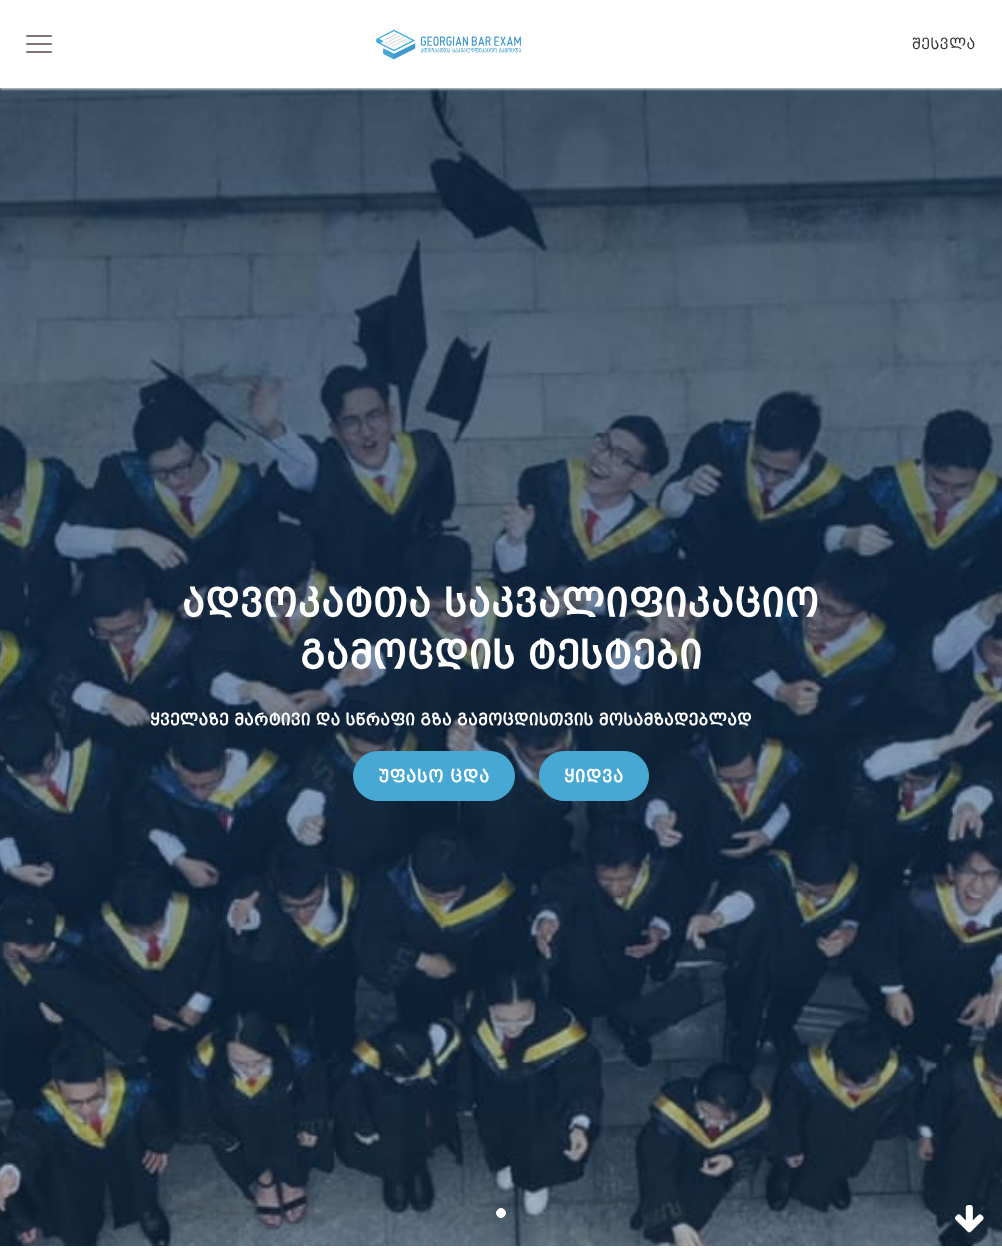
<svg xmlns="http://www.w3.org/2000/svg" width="1002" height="1248">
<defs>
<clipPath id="clip1"><rect x="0" y="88" width="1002" height="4"/></clipPath>
</defs>
<rect width="100%" height="100%" fill="#fff"/>
<image x="0" y="88" width="1002" height="1158" href="media/2.png"/>
<g clip-path="url(#clip1)">
<rect y="1" width="1002" height="88" fill="#eaeaea" filter="blur(1.5px)"/>
</g>
<rect x="26" y="35" width="26" height="2" rx="1" fill="#807575"/>
<rect x="26" y="43" width="26" height="2" rx="1" fill="#807575"/>
<rect x="26" y="51" width="26" height="2" rx="1" fill="#807575"/>
<image x="376" y="29" width="145" height="31" href="media/1.png"/>
<text x="912" y="49" style="font-family:'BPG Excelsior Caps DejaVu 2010';font-size:15px;letter-spacing:0.5px;fill:#333">შესვლა</text>
<text x="182" y="616" style="font-family:'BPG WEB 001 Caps';font-size:40px;fill:#fff">ადვოკატთა საკვალიფიკაციო</text>
<text x="300" y="668" style="font-family:'BPG WEB 001 Caps';font-size:40px;fill:#fff">გამოცდის ტესტები</text>
<text x="150" y="725" style="font-family:'BPG WEB 001 Caps';font-size:17px;fill:#fff">ყველაზე მარტივი და სწრაფი გზა გამოცდისთვის მოსამზადებლად</text>
<rect x="353.5" y="751.5" width="161" height="49" rx="24.5" fill="#46a8d3" stroke="#46a8d3"/>
<text x="378" y="782" style="font-family:'BPG WEB 001 Caps';font-size:18px;letter-spacing:0.5px;fill:#fff">უფასო ცდა</text>
<rect x="539.5" y="751.5" width="109" height="49" rx="24.5" fill="#46a8d3" stroke="#46a8d3"/>
<text x="564" y="782" style="font-family:'BPG WEB 001 Caps';font-size:18px;letter-spacing:0.5px;fill:#fff">ყიდვა</text>
<circle cx="501" cy="1213" r="4.5" fill="#fff" stroke="#fff"/>
<image x="955" y="1205" width="29" height="28" href="media/3.png"/>
</svg>
